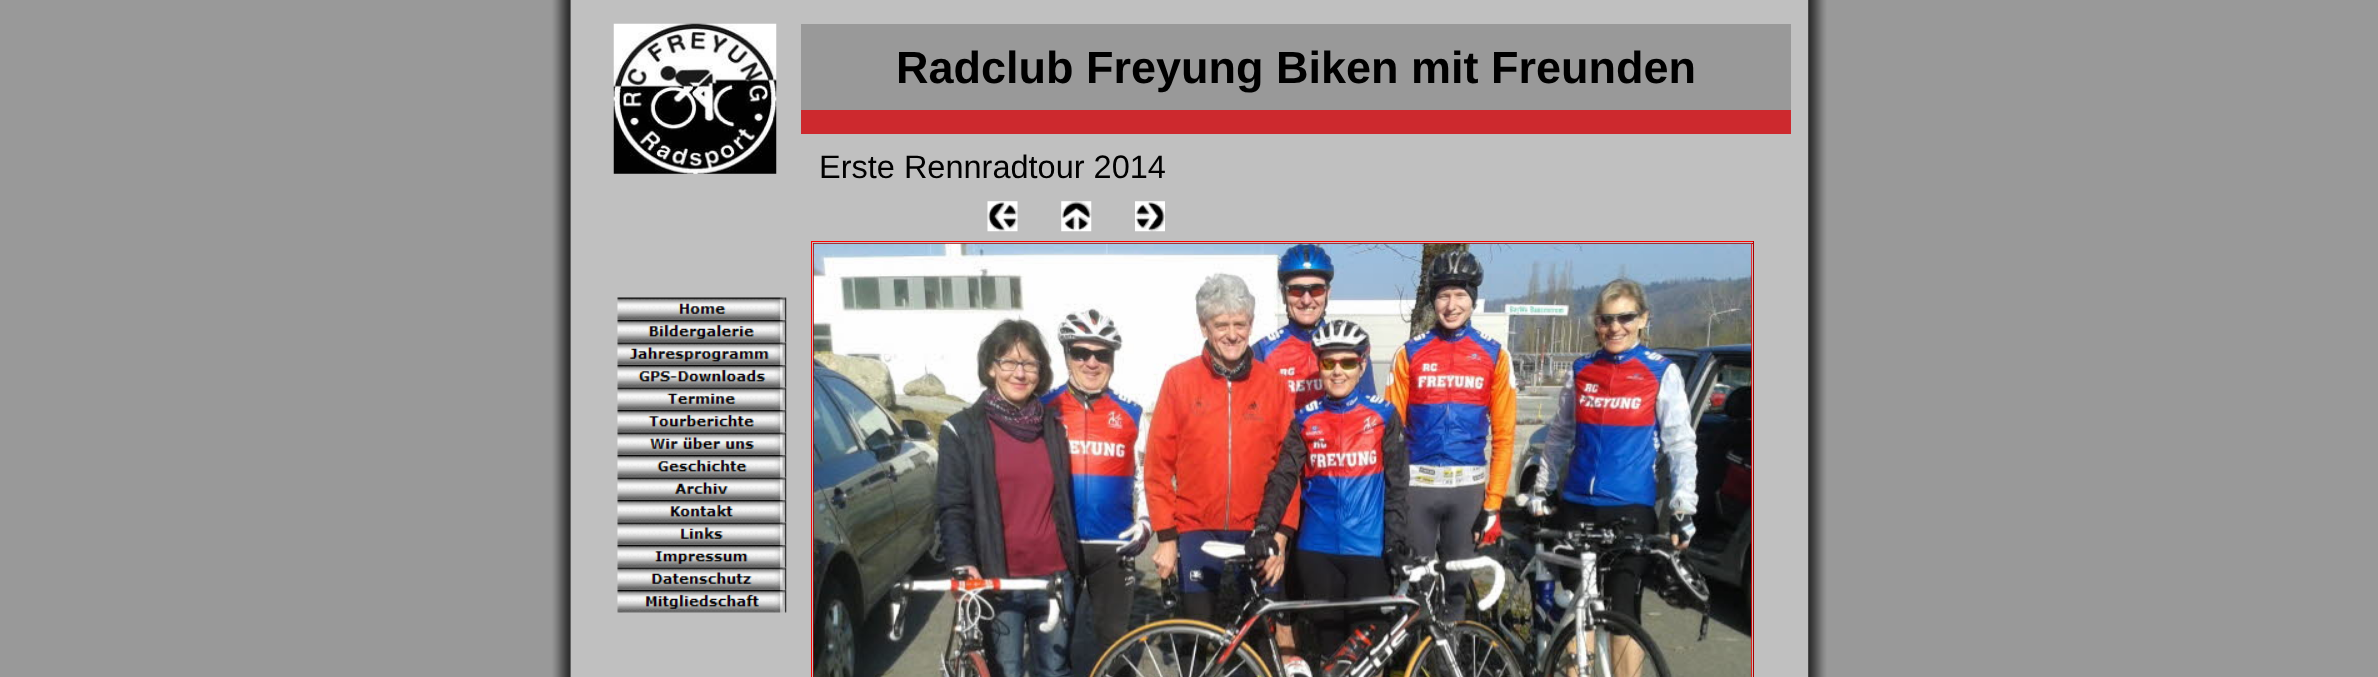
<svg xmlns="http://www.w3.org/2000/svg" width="2378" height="677">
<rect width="100%" height="100%" fill="#fff"/>
<image x="0" y="0" width="2378" height="677" href="media/1.png"/>
<image x="613" y="23" width="164" height="151" href="media/2.png"/>
<rect x="801" y="24" width="990" height="86" fill="#999"/>
<text x="896" y="83" style="font-family:Liberation Sans;font-size:45px;font-weight:bold;fill:#000">Radclub Freyung Biken mit Freunden</text>
<rect x="801" y="110" width="990" height="24" fill="#cd292e"/>
<text x="819" y="178" style="font-family:Liberation Sans;font-size:32.5px;fill:#000">Erste Rennradtour 2014</text>
<image x="987" y="201" width="31" height="31" href="media/3.png"/>
<image x="1061" y="201" width="31" height="31" href="media/4.png"/>
<image x="1135" y="201" width="30" height="31" href="media/5.png"/>
<image x="617" y="297" width="170" height="23" href="media/6.png"/>
<image x="617" y="320" width="170" height="23" href="media/7.png"/>
<image x="617" y="342" width="170" height="23" href="media/8.png"/>
<image x="617" y="365" width="170" height="23" href="media/9.png"/>
<image x="617" y="387" width="170" height="23" href="media/10.png"/>
<image x="617" y="410" width="170" height="23" href="media/11.png"/>
<image x="617" y="432" width="170" height="23" href="media/12.png"/>
<image x="617" y="455" width="170" height="23" href="media/13.png"/>
<image x="617" y="477" width="170" height="23" href="media/14.png"/>
<image x="617" y="500" width="170" height="23" href="media/15.png"/>
<image x="617" y="522" width="170" height="23" href="media/16.png"/>
<image x="617" y="545" width="170" height="23" href="media/17.png"/>
<image x="617" y="567" width="170" height="23" href="media/18.png"/>
<image x="617" y="590" width="170" height="23" href="media/19.png"/>
<rect x="811" y="241" width="943" height="1" fill="#f00"/>
<rect x="1753" y="241" width="1" height="436" fill="#a00"/>
<rect x="811" y="241" width="1" height="436" fill="#f00"/>
<rect x="813" y="243" width="940" height="1" fill="#a00"/>
<rect x="1751" y="243" width="1" height="434" fill="#f00"/>
<rect x="813" y="243" width="1" height="434" fill="#a00"/>
<image x="813" y="243" width="939" height="434" href="media/20.png"/>
</svg>
